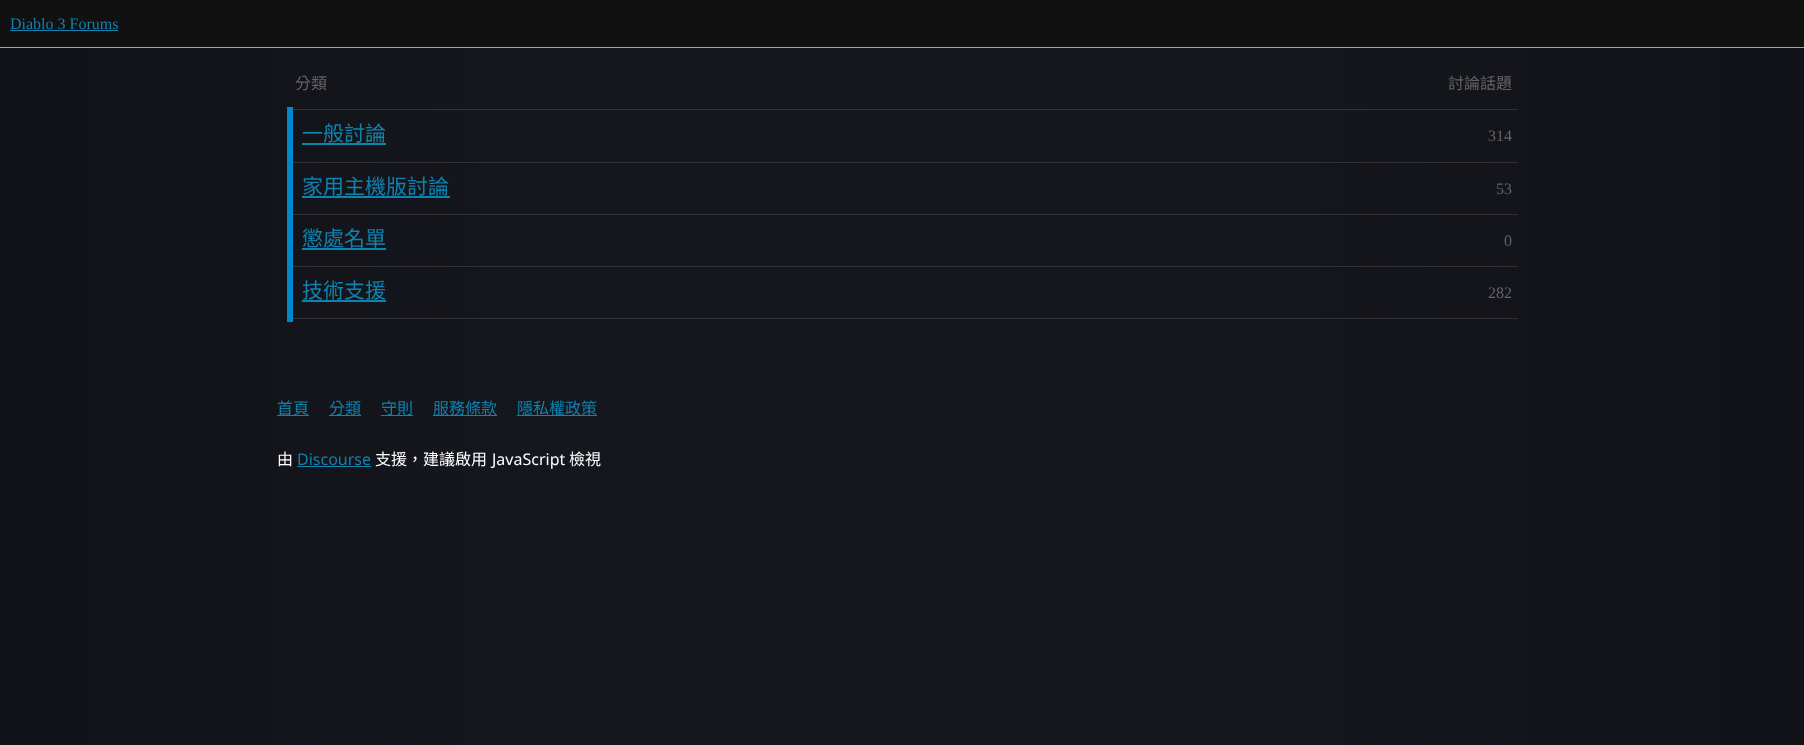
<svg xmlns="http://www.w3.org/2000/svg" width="1804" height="745">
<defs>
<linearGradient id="g1" gradientUnits="userSpaceOnUse" x1="0" y1="373" x2="1804" y2="372"><stop offset="0" stop-color="#111217"/><stop offset="0.3" stop-color="#15171e"/><stop offset="0.7" stop-color="#15171e"/><stop offset="1" stop-color="#111217"/></linearGradient>
<linearGradient id="g2" gradientUnits="userSpaceOnUse" x1="0" y1="373" x2="1804" y2="372"><stop offset="0" stop-color="#303035"/><stop offset="0.3" stop-color="#33353b"/><stop offset="0.7" stop-color="#33353b"/><stop offset="1" stop-color="#303035"/></linearGradient>
</defs>
<rect width="100%" height="100%" fill="#fff"/>
<rect y="48" width="1804" height="697" fill="url(#g1)"/>
<rect x="290" y="109" width="1228" height="1" fill="url(#g2)"/>
<rect width="1804" height="47" fill="#111"/>
<rect y="47" width="1804" height="1" fill="#a4a4a4"/>
<text x="10" y="29" style="font-family:Liberation Serif;font-size:16px;fill:#0f82af">Diablo 3 Forums</text>
<rect x="10" y="30" width="108" height="1" fill="#0f82af"/>
<text x="295" y="89" style="font-family:Noto Sans CJK TC;font-size:16px;fill:#646464">分類</text>
<text x="1448" y="89" style="font-family:Noto Sans CJK TC;font-size:16px;fill:#646464">討論話題</text>
<rect x="290" y="162" width="1228" height="1" fill="#313131"/>
<text x="302" y="141" style="font-family:Noto Sans CJK TC;font-size:21px;fill:#0f82af">一般討論</text>
<rect x="302" y="143" width="84" height="2" fill="#0f82af"/>
<text x="1488" y="141" style="font-family:Liberation Serif;font-size:16px;fill:#646464">314</text>
<rect x="290" y="214" width="1228" height="1" fill="#313131"/>
<text x="302" y="194" style="font-family:Noto Sans CJK TC;font-size:21px;fill:#0f82af">家用主機版討論</text>
<rect x="302" y="196" width="148" height="2" fill="#0f82af"/>
<text x="1496" y="194" style="font-family:Liberation Serif;font-size:16px;fill:#646464">53</text>
<rect x="290" y="266" width="1228" height="1" fill="#313131"/>
<text x="302" y="246" style="font-family:Noto Sans CJK TC;font-size:21px;fill:#0f82af">懲處名單</text>
<rect x="302" y="248" width="84" height="2" fill="#0f82af"/>
<text x="1504" y="246" style="font-family:Liberation Serif;font-size:16px;fill:#646464">0</text>
<rect x="290" y="318" width="1228" height="1" fill="#313131"/>
<rect x="287" y="107" width="6" height="215" fill="#08c"/>
<text x="302" y="298" style="font-family:Noto Sans CJK TC;font-size:21px;fill:#0f82af">技術支援</text>
<rect x="302" y="300" width="84" height="2" fill="#0f82af"/>
<text x="1488" y="298" style="font-family:Liberation Serif;font-size:16px;fill:#646464">282</text>
<rect x="277" y="415" width="32" height="1" fill="#0f82af"/>
<text x="277" y="414" style="font-family:Noto Sans CJK TC;font-size:16px;fill:#0f82af">首頁</text>
<rect x="329" y="415" width="32" height="1" fill="#0f82af"/>
<text x="329" y="414" style="font-family:Noto Sans CJK TC;font-size:16px;fill:#0f82af">分類</text>
<rect x="381" y="415" width="32" height="1" fill="#0f82af"/>
<text x="381" y="414" style="font-family:Noto Sans CJK TC;font-size:16px;fill:#0f82af">守則</text>
<rect x="433" y="415" width="64" height="1" fill="#0f82af"/>
<text x="433" y="414" style="font-family:Noto Sans CJK TC;font-size:16px;fill:#0f82af">服務條款</text>
<rect x="517" y="415" width="80" height="1" fill="#0f82af"/>
<text x="517" y="414" style="font-family:Noto Sans CJK TC;font-size:16px;fill:#0f82af">隱私權政策</text>
<text x="277" y="465" style="font-family:Noto Sans CJK TC;font-size:16px;fill:#fff">由</text>
<text x="297" y="465" style="font-family:Noto Sans;font-size:16px;fill:#0f82af">Discourse</text>
<rect x="297" y="466" width="74" height="1" fill="#0f82af"/>
<text x="375" y="465" style="font-family:Noto Sans CJK TC;font-size:16px;fill:#fff">支援，建議啟用</text>
<text x="492" y="465" style="font-family:Noto Sans;font-size:16px;fill:#fff">JavaScript</text>
<text x="569" y="465" style="font-family:Noto Sans CJK TC;font-size:16px;fill:#fff">檢視</text>
</svg>
